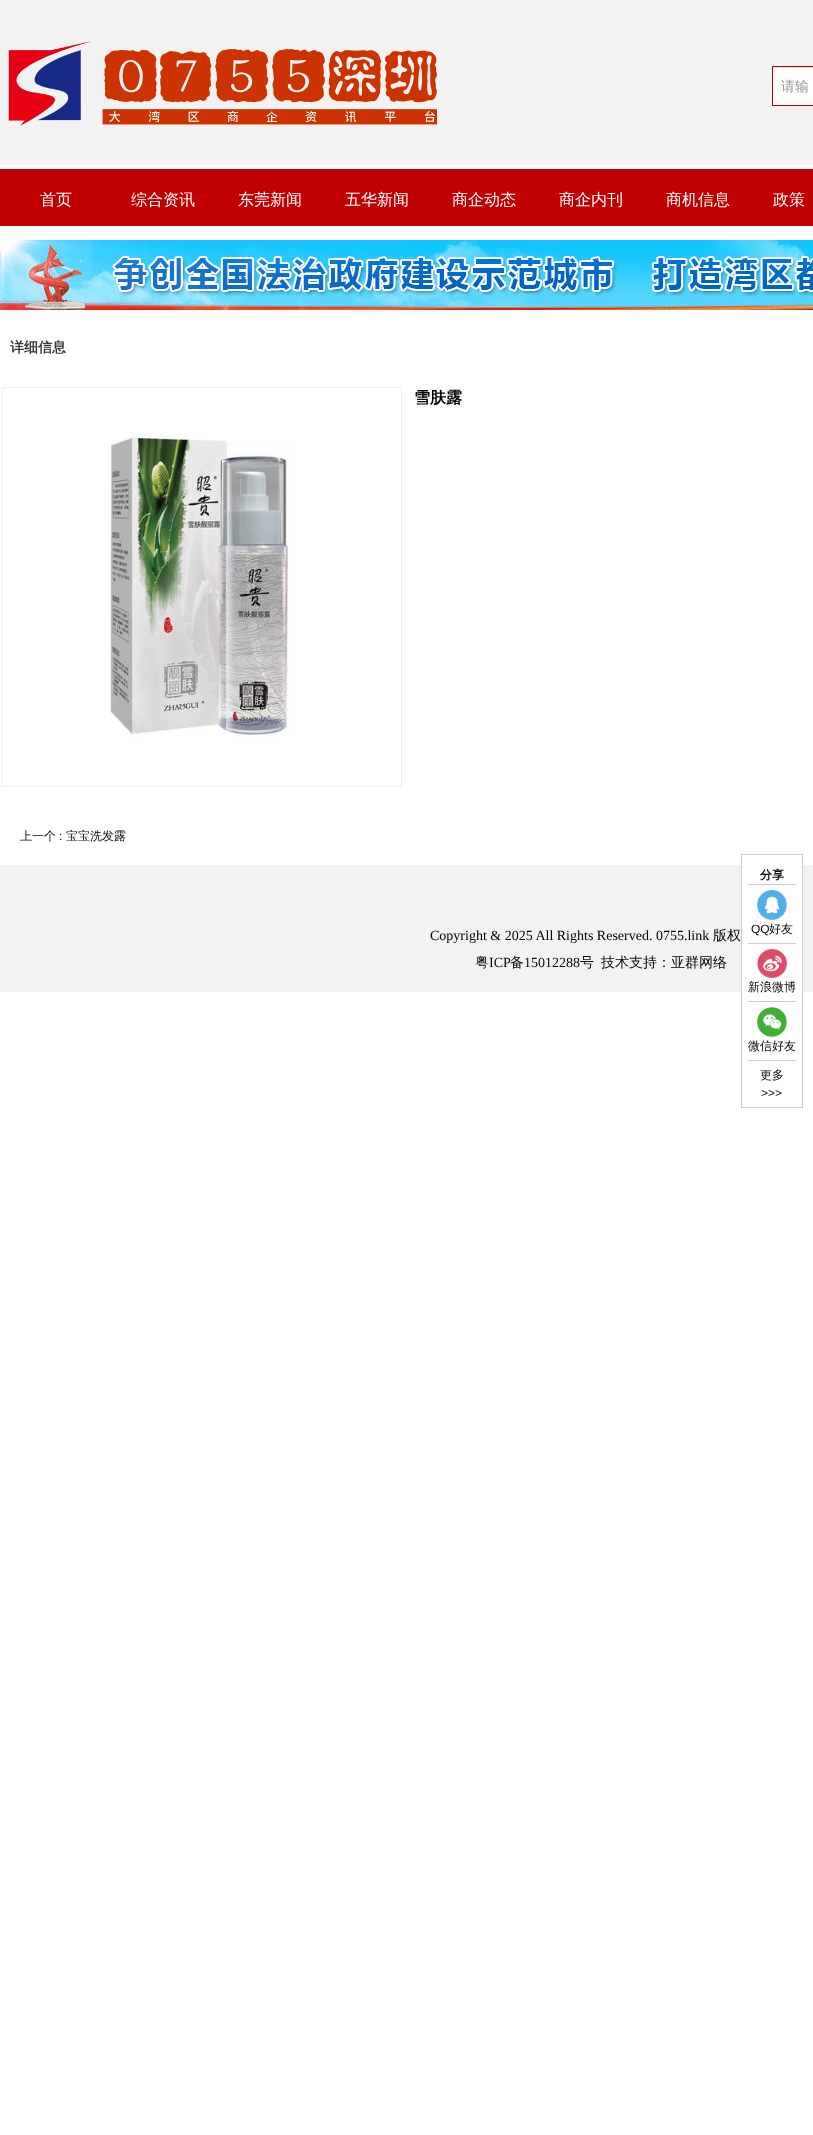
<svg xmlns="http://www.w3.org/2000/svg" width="813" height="2135">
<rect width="100%" height="100%" fill="#fff"/>
<rect width="813" height="165" fill="#f2f2f2"/>
<image x="8" y="41" width="429" height="85" href="media/1.png"/>
<rect x="773" y="68" width="40" height="37" fill="#fff"/>
<rect x="773" y="67" width="40" height="1" fill="#ececec"/>
<rect x="772.5" y="66.5" width="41" height="39" fill="none" stroke="#c00000"/>
<text x="781" y="91" style="font-family:WenQuanYi Zen Hei;font-size:14px;font-weight:500;fill:#999">请输</text>
<rect y="169" width="813" height="57" fill="#c00000"/>
<rect y="865" width="813" height="127" fill="#f2f2f2"/>
<text x="40" y="205" style="font-family:WenQuanYi Zen Hei;font-size:16px;font-weight:500;fill:#fff">首页</text>
<text x="131" y="205" style="font-family:WenQuanYi Zen Hei;font-size:16px;font-weight:500;fill:#fff">综合资讯</text>
<text x="238" y="205" style="font-family:WenQuanYi Zen Hei;font-size:16px;font-weight:500;fill:#fff">东莞新闻</text>
<text x="345" y="205" style="font-family:WenQuanYi Zen Hei;font-size:16px;font-weight:500;fill:#fff">五华新闻</text>
<text x="452" y="205" style="font-family:WenQuanYi Zen Hei;font-size:16px;font-weight:500;fill:#fff">商企动态</text>
<text x="559" y="205" style="font-family:WenQuanYi Zen Hei;font-size:16px;font-weight:500;fill:#fff">商企内刊</text>
<text x="666" y="205" style="font-family:WenQuanYi Zen Hei;font-size:16px;font-weight:500;fill:#fff">商机信息</text>
<text x="773" y="205" style="font-family:WenQuanYi Zen Hei;font-size:16px;font-weight:500;fill:#fff">政策</text>
<image x="0" y="240" width="813" height="70" href="media/2.png"/>
<text x="10" y="352" style="font-family:WenQuanYi Zen Hei;font-size:14px;font-weight:bold;fill:#333">详细信息</text>
<rect x="2.5" y="387.5" width="399" height="399" fill="none" stroke="#eee"/>
<image x="110" y="433" width="180" height="305" href="media/3.png"/>
<text x="414" y="403" style="font-family:WenQuanYi Zen Hei;font-size:16px;font-weight:bold;fill:#000">雪肤露</text>
<text x="20" y="840" style="font-family:WenQuanYi Zen Hei;font-size:12px;font-weight:500;fill:#0b0b0d">上一个</text>
<text x="59" y="840" style="font-family:Liberation Sans;font-size:12px;fill:#0b0b0d">:</text>
<text x="66" y="840" style="font-family:WenQuanYi Zen Hei;font-size:12px;font-weight:500;fill:#0b0b0d">宝宝洗发露</text>
<rect x="742" y="865" width="60" height="127" fill="#fff"/>
<rect x="741.5" y="854.5" width="61" height="253" fill="none" stroke="#ccc"/>
<rect x="748" y="884" width="48" height="1" fill="#ccc"/>
<text x="760" y="879" style="font-family:WenQuanYi Zen Hei;font-size:12px;font-weight:bold;fill:#0b0b0d">分享</text>
<rect x="748" y="943" width="48" height="1" fill="#ccc"/>
<image x="757" y="890" width="30" height="30" href="media/4.png"/>
<text x="751" y="933" style="font-family:Liberation Sans;font-size:12px;fill:#0b0b0d">QQ</text>
<text x="769" y="933" style="font-family:WenQuanYi Zen Hei;font-size:12px;font-weight:500;fill:#0b0b0d">好友</text>
<rect x="748" y="1001" width="48" height="1" fill="#ccc"/>
<image x="757" y="949" width="30" height="29" href="media/5.png"/>
<text x="748" y="991" style="font-family:WenQuanYi Zen Hei;font-size:12px;font-weight:500;fill:#0b0b0d">新浪微博</text>
<rect x="748" y="1060" width="48" height="1" fill="#ccc"/>
<image x="757" y="1007" width="30" height="30" href="media/6.png"/>
<text x="748" y="1050" style="font-family:WenQuanYi Zen Hei;font-size:12px;font-weight:500;fill:#0b0b0d">微信好友</text>
<text x="760" y="1079" style="font-family:WenQuanYi Zen Hei;font-size:12px;font-weight:500;fill:#0b0b0d">更多</text>
<text x="761" y="1097" style="font-family:Liberation Sans;font-size:12px;fill:#0b0b0d">&gt;&gt;&gt;</text>
<text x="430" y="940" style="font-family:Liberation Serif;font-size:14px;fill:#000">Copyright &amp; 2025 All Rights Reserved. 0755.link</text>
<text x="713" y="940" style="font-family:WenQuanYi Zen Hei;font-size:14px;font-weight:500;fill:#000">版权</text>
<text x="475" y="967" style="font-family:WenQuanYi Zen Hei;font-size:14px;font-weight:500;fill:#0b0b0d">粤</text>
<text x="489" y="967" style="font-family:Liberation Serif;font-size:14px;fill:#0b0b0d">ICP</text>
<text x="510" y="967" style="font-family:WenQuanYi Zen Hei;font-size:14px;font-weight:500;fill:#0b0b0d">备</text>
<text x="524" y="967" style="font-family:Liberation Serif;font-size:14px;fill:#0b0b0d">15012288</text>
<text x="580" y="967" style="font-family:WenQuanYi Zen Hei;font-size:14px;font-weight:500;fill:#0b0b0d">号</text>
<text x="601" y="967" style="font-family:WenQuanYi Zen Hei;font-size:14px;font-weight:500;fill:#0b0b0d">技术支持：</text>
<text x="671" y="967" style="font-family:WenQuanYi Zen Hei;font-size:14px;font-weight:500;fill:#000">亚群网络</text>
</svg>
